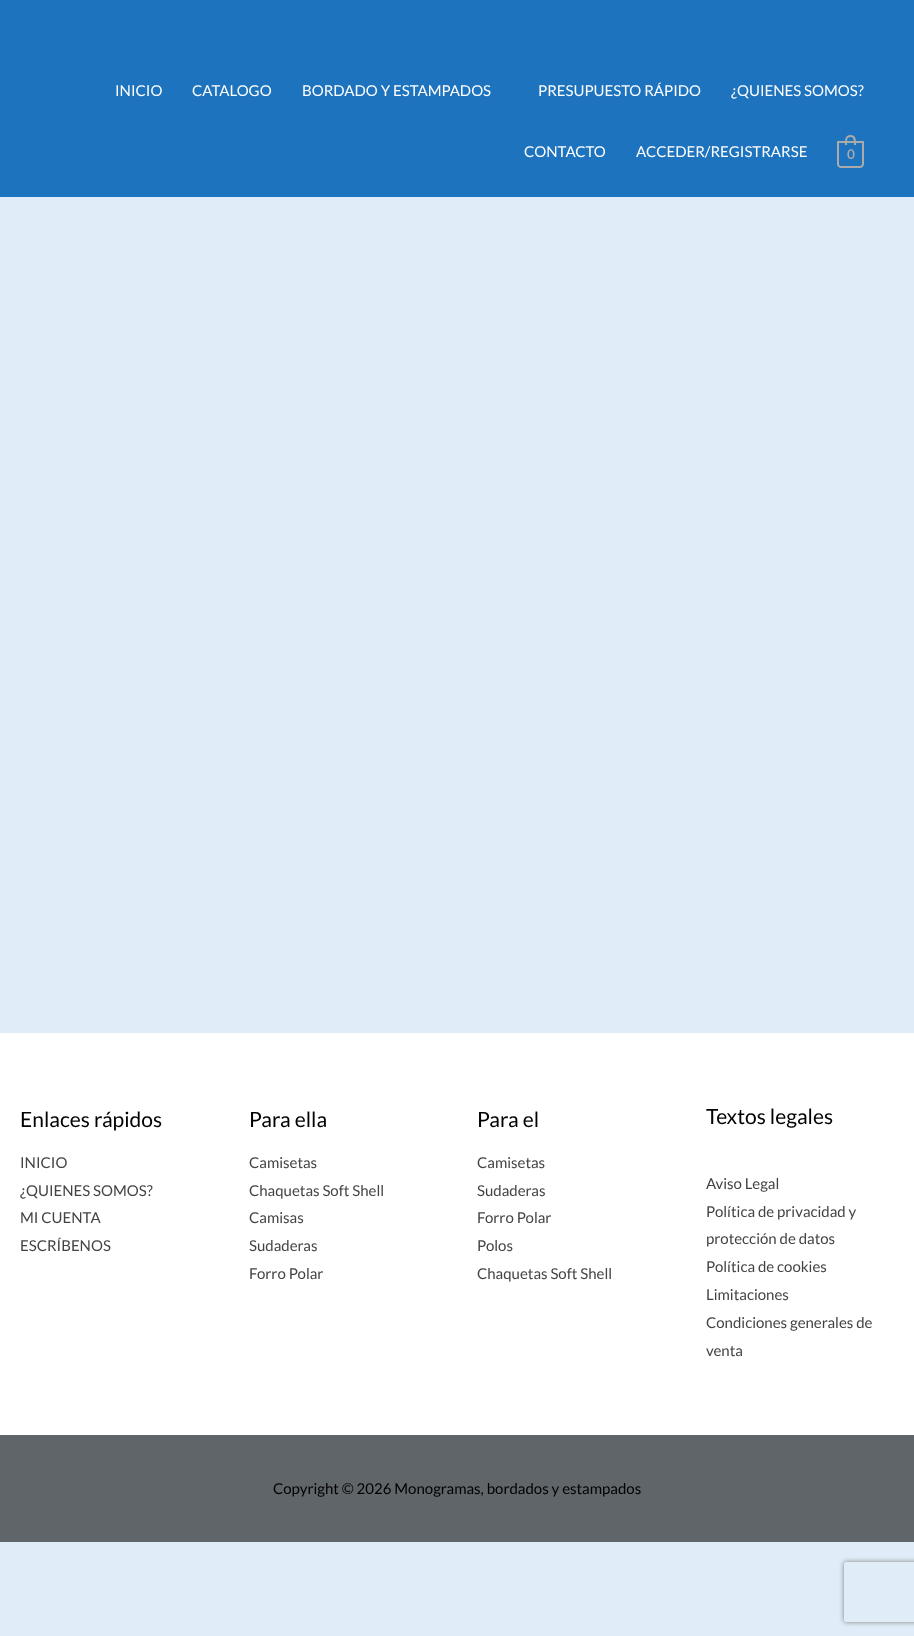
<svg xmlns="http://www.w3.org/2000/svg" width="914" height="1636">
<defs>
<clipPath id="clip1"><path d="M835 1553h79v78h-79zm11 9h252c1 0 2 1 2 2v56c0 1-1 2-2 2h-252c-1 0-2-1-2-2v-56c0-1 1-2 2-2z" clip-rule="evenodd"/></clipPath>
</defs>
<rect width="100%" height="100%" fill="#e0ecf7"/>
<rect width="914" height="197" fill="#1e73be"/>
<text x="115" y="96" style="font-family:Lato;font-size:15px;fill:#fff">INICIO</text>
<text x="192" y="96" style="font-family:Lato;font-size:15px;fill:#fff">CATALOGO</text>
<text x="302" y="96" style="font-family:Lato;font-size:15px;fill:#fff">BORDADO Y ESTAMPADOS</text>
<text x="538" y="96" style="font-family:Lato;font-size:15px;fill:#fff">PRESUPUESTO RÁPIDO</text>
<text x="731" y="96" style="font-family:Lato;font-size:15px;fill:#fff">¿QUIENES SOMOS?</text>
<text x="524" y="157" style="font-family:Lato;font-size:15px;fill:#fff">CONTACTO</text>
<text x="636" y="157" style="font-family:Lato;font-size:15px;fill:#fff">ACCEDER/REGISTRARSE</text>
<path d="M838 142h25v22c0 1.5-1.5 3-3 3h-19c-1.5 0-3-1.5-3-3z" fill="none" stroke="#aaa" stroke-width="2"/>
<path d="M850.5 135c6 0 5.5 6 5.5 10h-11c0-4-.5-10 5.5-10zm0 2c4 0 3.5 5 3.5 8h-7c0-3-1-8 3.5-8z" fill="#aaa" fill-rule="evenodd"/>
<text x="847" y="159" style="font-family:Lato;font-size:13px;font-weight:bold;fill:#aaa">0</text>
<rect y="1033" width="914" height="402" fill="#fff"/>
<text x="20" y="1127" style="font-family:Lato;font-size:21px;fill:#000">Enlaces rápidos</text>
<text x="20" y="1168" style="font-family:Lato;font-size:15px;fill:#434343">INICIO</text>
<text x="20" y="1196" style="font-family:Lato;font-size:15px;fill:#434343">¿QUIENES SOMOS?</text>
<text x="20" y="1223" style="font-family:Lato;font-size:15px;fill:#434343">MI CUENTA</text>
<text x="20" y="1251" style="font-family:Lato;font-size:15px;fill:#434343">ESCRÍBENOS</text>
<text x="249" y="1127" style="font-family:Lato;font-size:21px;fill:#000">Para ella</text>
<text x="249" y="1168" style="font-family:Lato;font-size:15px;fill:#434343">Camisetas</text>
<text x="249" y="1196" style="font-family:Lato;font-size:15px;fill:#434343">Chaquetas Soft Shell</text>
<text x="249" y="1223" style="font-family:Lato;font-size:15px;fill:#434343">Camisas</text>
<text x="249" y="1251" style="font-family:Lato;font-size:15px;fill:#434343">Sudaderas</text>
<text x="249" y="1279" style="font-family:Lato;font-size:15px;fill:#434343">Forro Polar</text>
<text x="477" y="1127" style="font-family:Lato;font-size:21px;fill:#000">Para el</text>
<text x="477" y="1168" style="font-family:Lato;font-size:15px;fill:#434343">Camisetas</text>
<text x="477" y="1196" style="font-family:Lato;font-size:15px;fill:#434343">Sudaderas</text>
<text x="477" y="1223" style="font-family:Lato;font-size:15px;fill:#434343">Forro Polar</text>
<text x="477" y="1251" style="font-family:Lato;font-size:15px;fill:#434343">Polos</text>
<text x="477" y="1279" style="font-family:Lato;font-size:15px;fill:#434343">Chaquetas Soft Shell</text>
<text x="706" y="1124" style="font-family:Lato;font-size:21px;fill:#000">Textos legales</text>
<text x="706" y="1189" style="font-family:Lato;font-size:15px;fill:#434343">Aviso Legal</text>
<text x="706" y="1217" style="font-family:Lato;font-size:15px;fill:#434343">Política de privacidad y</text>
<text x="706" y="1244" style="font-family:Lato;font-size:15px;fill:#434343">protección de datos</text>
<text x="706" y="1272" style="font-family:Lato;font-size:15px;fill:#434343">Política de cookies</text>
<text x="706" y="1300" style="font-family:Lato;font-size:15px;fill:#434343">Limitaciones</text>
<text x="706" y="1328" style="font-family:Lato;font-size:15px;fill:#434343">Condiciones generales de</text>
<text x="706" y="1356" style="font-family:Lato;font-size:15px;fill:#434343">venta</text>
<rect y="1435" width="914" height="107" fill="#60656a"/>
<text x="273" y="1494" style="font-family:Lato;font-size:15px;fill:#000">Copyright © 2026 Monogramas, bordados y estampados</text>
<g clip-path="url(#clip1)">
<rect x="844" y="1562" width="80" height="60" rx="2" fill="#808080" filter="blur(2.5px)"/>
</g>
</svg>
